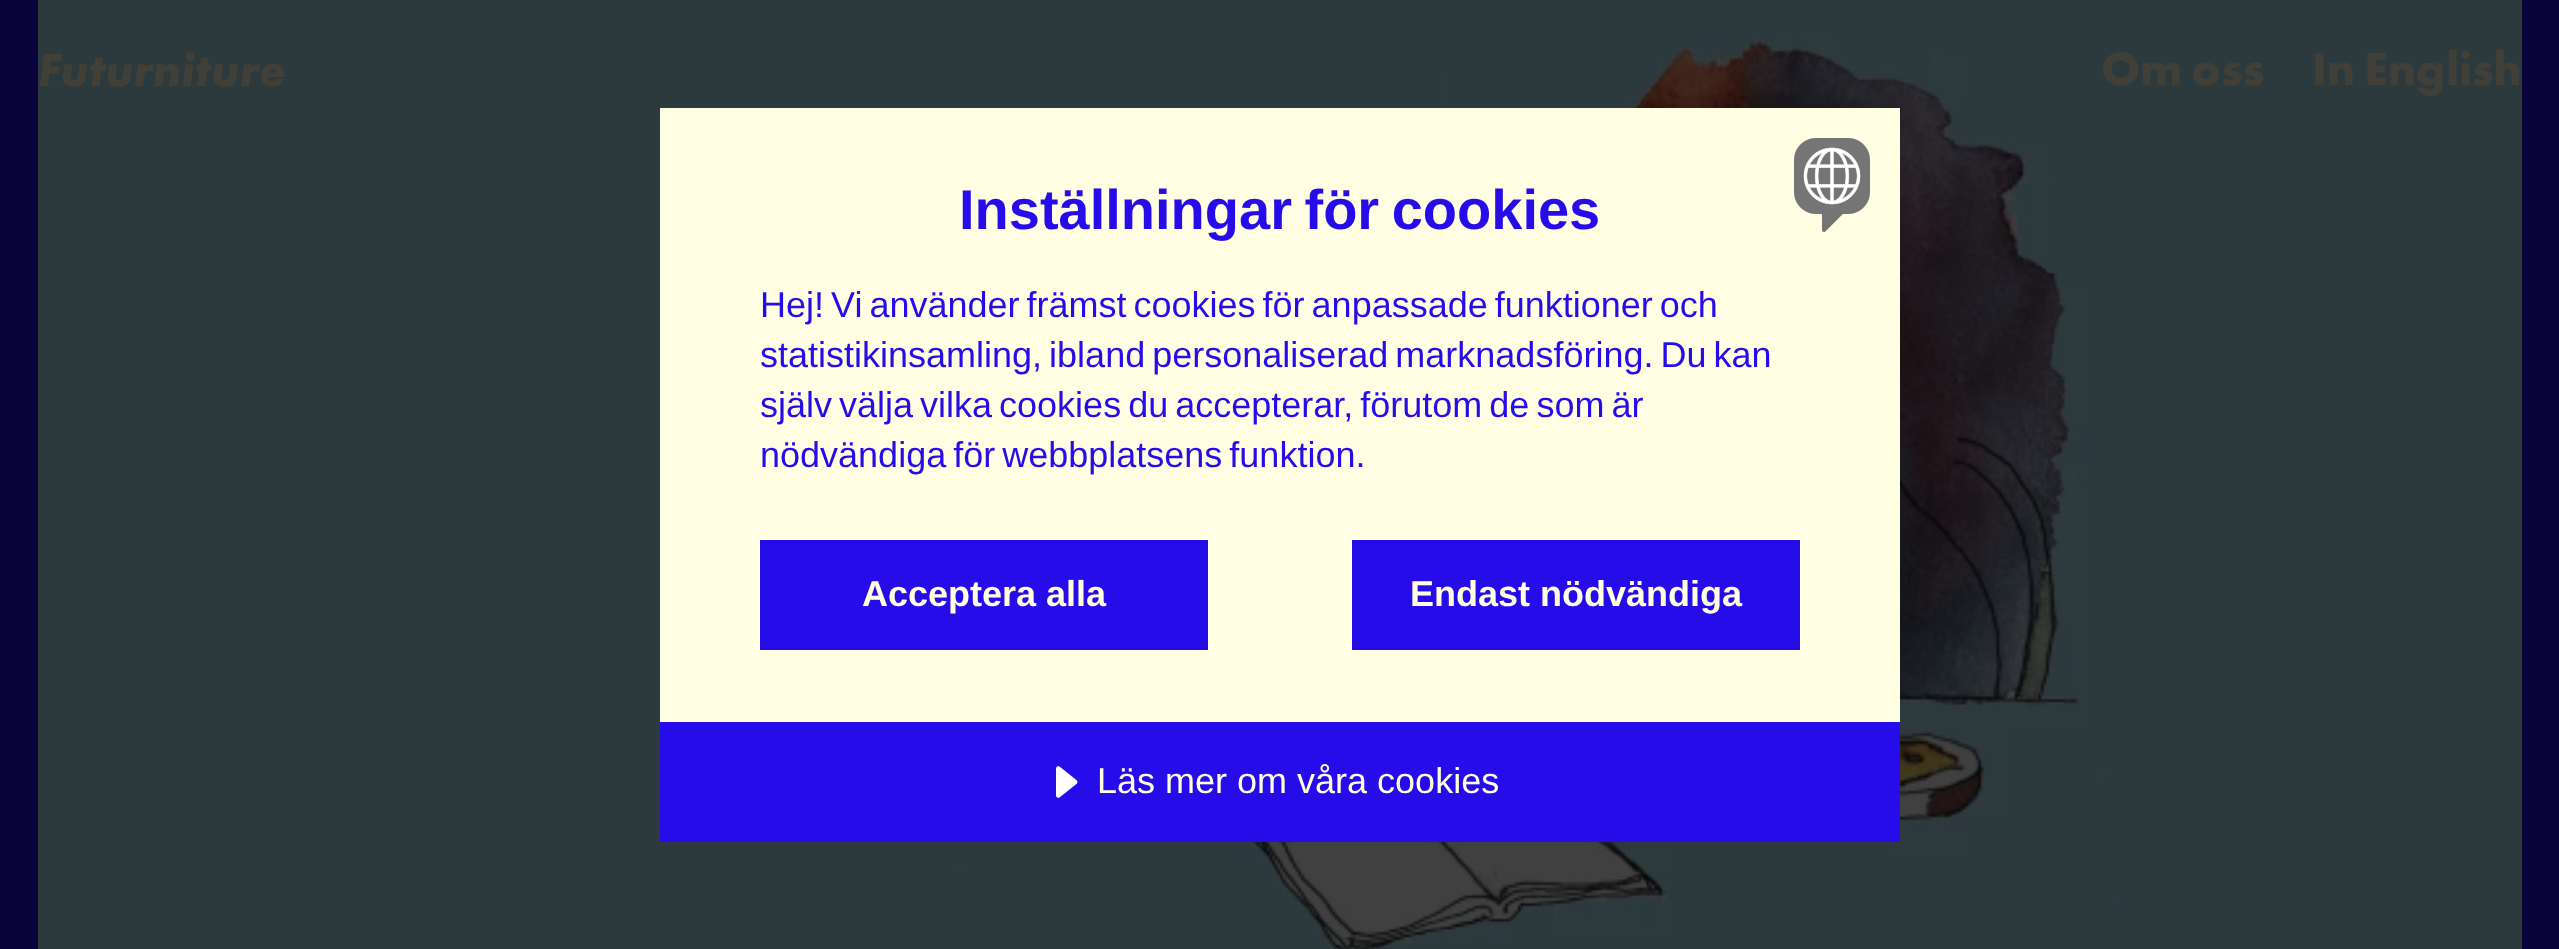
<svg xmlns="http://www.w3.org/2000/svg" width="2559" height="949">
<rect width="100%" height="100%" fill="#0a033b"/>
<image x="38" y="0" width="2484" height="949" href="media/1.png"/>
<text x="38" y="86" style="font-family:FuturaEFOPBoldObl;font-size:48px;font-weight:bold;font-style:italic;fill:#404039">Futurniture</text>
<text x="2101" y="85" word-spacing="-3" style="font-family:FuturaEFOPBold;font-size:48px;font-weight:bold;fill:#404039">Om oss</text>
<text x="2312" y="85" word-spacing="-3" style="font-family:FuturaEFOPBold;font-size:48px;font-weight:bold;fill:#404039">In English</text>
<rect x="660" y="108" width="1240" height="614" fill="#fffee2"/>
<text x="959" y="229" word-spacing="-3" style="font-family:Liberation Sans;font-size:56px;font-weight:bold;fill:#270cea">Inställningar för cookies</text>
<text x="760" y="317" word-spacing="-3" style="font-family:Liberation Sans;font-size:36px;fill:#270cea">Hej! Vi använder främst cookies för anpassade funktioner och</text>
<text x="760" y="367" word-spacing="-3" style="font-family:Liberation Sans;font-size:36px;fill:#270cea">statistikinsamling, ibland personaliserad marknadsföring. Du kan</text>
<text x="760" y="417" word-spacing="-3" style="font-family:Liberation Sans;font-size:36px;fill:#270cea">själv välja vilka cookies du accepterar, förutom de som är</text>
<text x="760" y="467" word-spacing="-3" style="font-family:Liberation Sans;font-size:36px;fill:#270cea">nödvändiga för webbplatsens funktion.</text>
<rect x="1278" y="540" width="4" height="122" fill="#fffee7"/>
<rect x="760" y="540" width="448" height="110" fill="#270cea"/>
<text x="862" y="606" style="font-family:Liberation Sans;font-size:36px;font-weight:bold;fill:#fffee2">Acceptera alla</text>
<rect x="1352" y="540" width="448" height="110" fill="#270cea"/>
<text x="1410" y="606" style="font-family:Liberation Sans;font-size:36px;font-weight:bold;fill:#fffee2">Endast nödvändiga</text>
<image x="1794" y="138" width="76" height="94" href="media/2.png"/>
<rect x="660" y="722" width="1240" height="120" fill="#270cea"/>
<image x="1056" y="766" width="22" height="32" href="media/3.png"/>
<text x="1097" y="793" style="font-family:Liberation Sans;font-size:36px;fill:#fffee2">Läs mer om våra cookies</text>
</svg>
